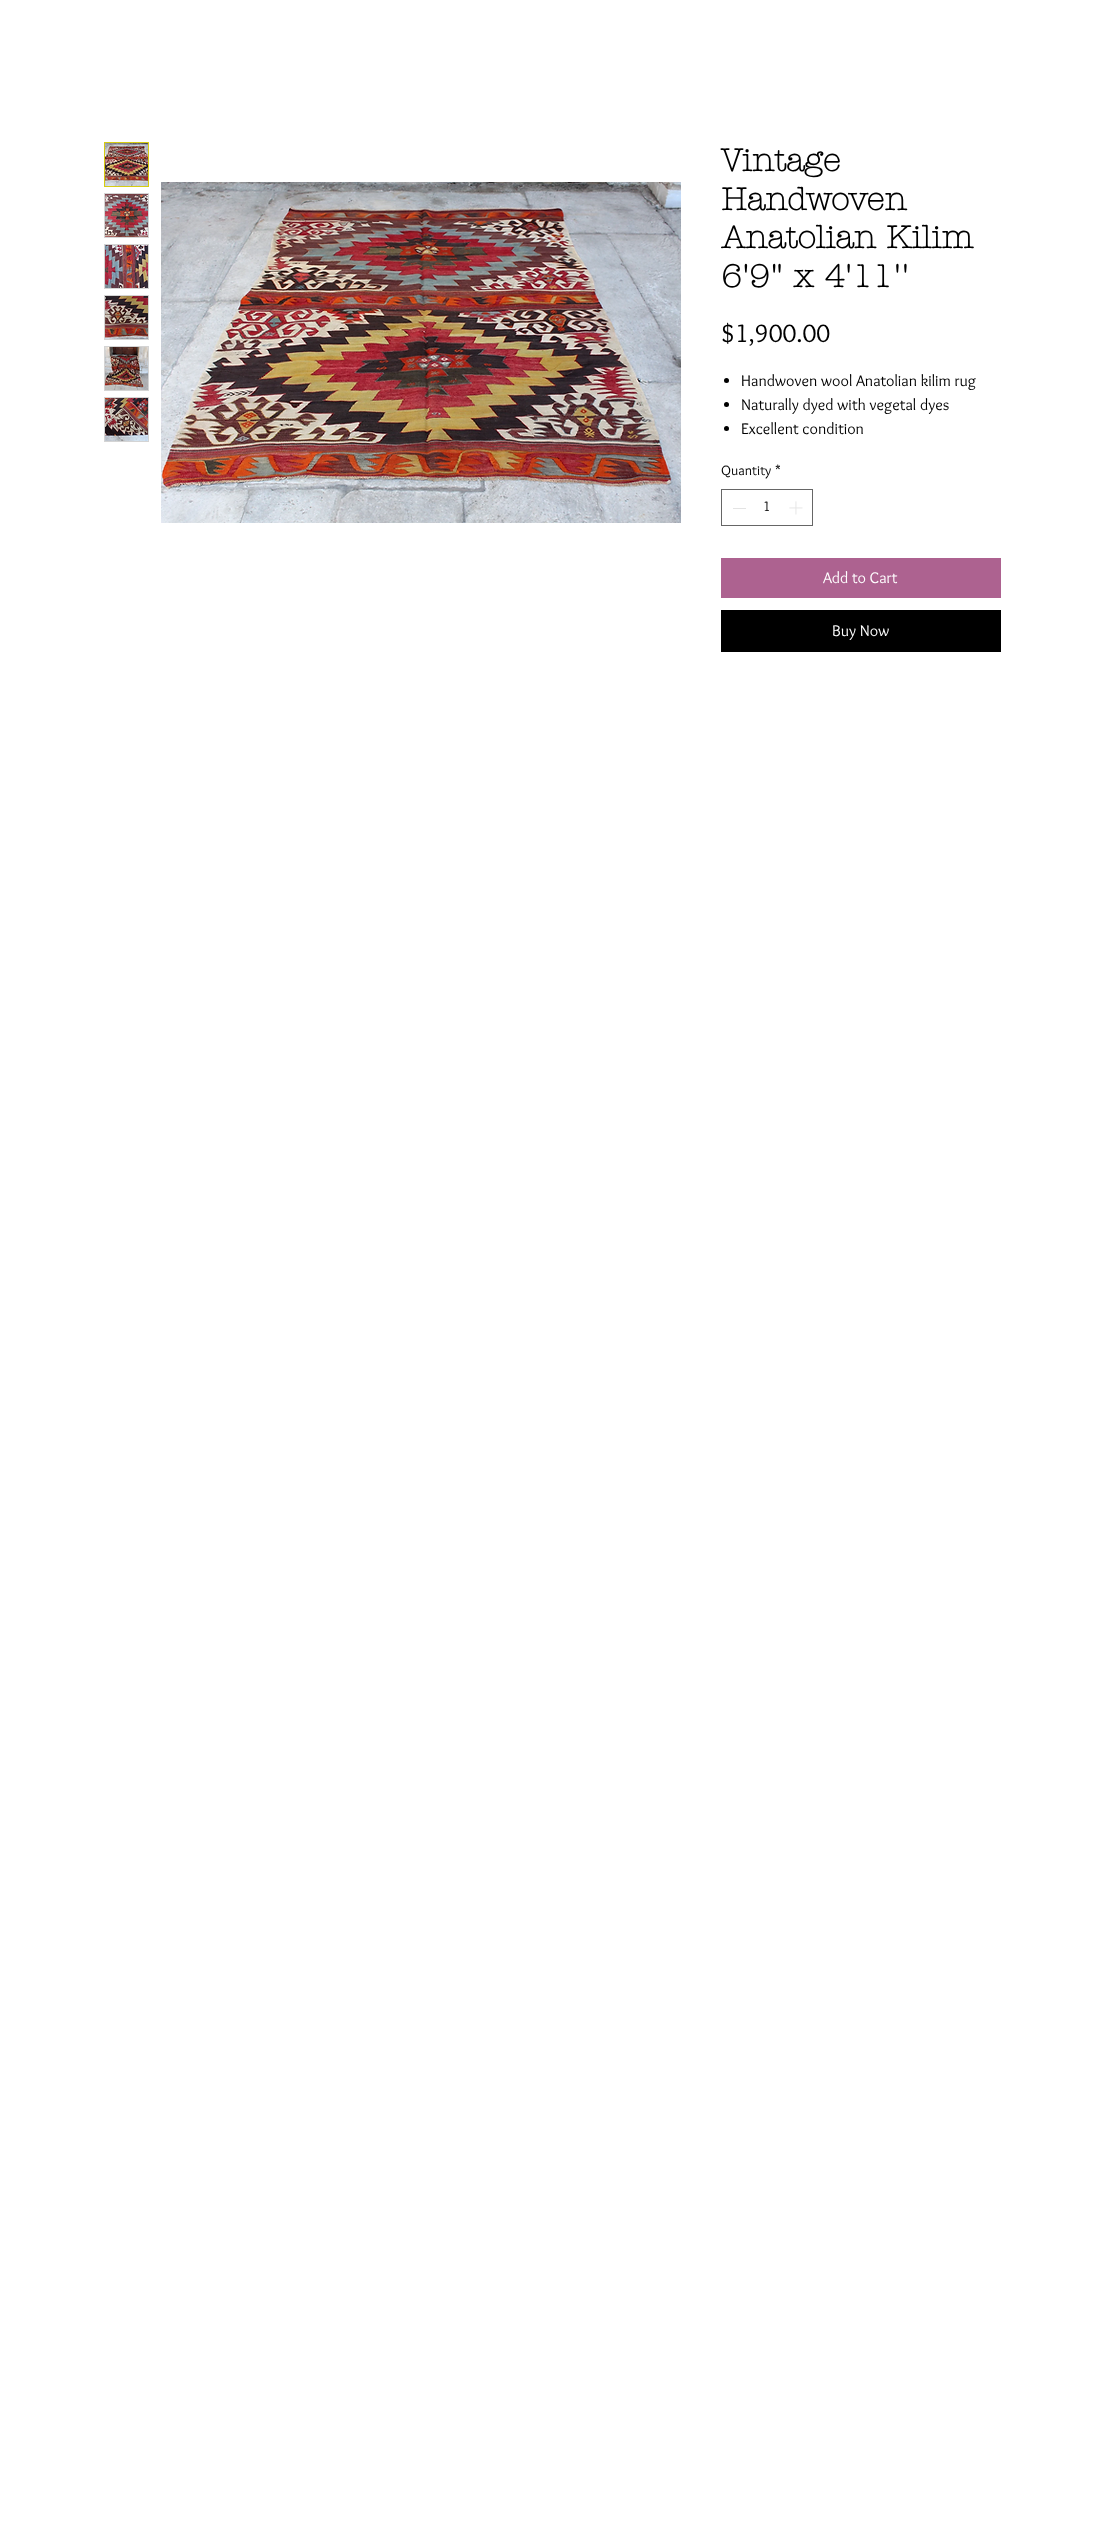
<svg xmlns="http://www.w3.org/2000/svg" width="1101" height="2533">
<rect width="100%" height="100%" fill="#fff"/>
<rect x="104.5" y="142.5" width="44" height="44" fill="none" stroke="#d6cc11"/>
<image x="105" y="143" width="43" height="43" href="media/1.png"/>
<rect x="104" y="193" width="45" height="45" fill="#d4d4d4"/>
<image x="105" y="194" width="43" height="43" href="media/2.png"/>
<rect x="104" y="244" width="45" height="45" fill="#d4d4d4"/>
<image x="105" y="245" width="43" height="43" href="media/3.png"/>
<rect x="104" y="295" width="45" height="45" fill="#d4d4d4"/>
<image x="105" y="296" width="43" height="43" href="media/4.png"/>
<rect x="104" y="346" width="45" height="45" fill="#d4d4d4"/>
<image x="105" y="347" width="43" height="43" href="media/5.png"/>
<rect x="104" y="397" width="45" height="45" fill="#d4d4d4"/>
<image x="105" y="398" width="43" height="43" href="media/6.png"/>
<image x="161" y="182" width="520" height="341" href="media/7.png"/>
<text x="721" y="171" style="font-family:'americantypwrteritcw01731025';font-size:32px;font-weight:bold;fill:#000">Vintage</text>
<text x="721" y="210" style="font-family:'americantypwrteritcw01731025';font-size:32px;font-weight:bold;fill:#000">Handwoven</text>
<text x="721" y="248" style="font-family:'americantypwrteritcw01731025';font-size:32px;font-weight:bold;fill:#000">Anatolian Kilim</text>
<text x="721" y="287" style="font-family:'americantypwrteritcw01731025';font-size:32px;font-weight:bold;fill:#000">6'9" x 4'11''</text>
<text x="721" y="342" style="font-family:Overlock;font-size:26px;fill:#000">$1,900.00</text>
<circle cx="726.5" cy="380.5" r="2.5" fill="#000"/>
<text x="741" y="386" style="font-family:Overlock;font-size:16px;fill:#000">Handwoven wool Anatolian kilim rug</text>
<circle cx="726.5" cy="404.5" r="2.5" fill="#000"/>
<text x="741" y="410" style="font-family:Overlock;font-size:16px;fill:#000">Naturally dyed with vegetal dyes</text>
<circle cx="726.5" cy="428.5" r="2.5" fill="#000"/>
<text x="741" y="434" style="font-family:Overlock;font-size:16px;fill:#000">Excellent condition</text>
<text x="721" y="475" style="font-family:Overlock;font-size:14px;fill:#000">Quantity</text>
<text x="775" y="475" style="font-family:Overlock;font-size:14px;fill:#000">*</text>
<rect x="721.5" y="489.5" width="91" height="36" fill="none" stroke="#666"/>
<rect x="733" y="508" width="13" height="1" fill="#e3e3e3"/>
<text x="763" y="511" style="font-family:Overlock;font-size:14px;fill:#000">1</text>
<image x="789" y="501" width="14" height="14" href="media/8.png"/>
<rect x="721" y="558" width="280" height="40" fill="#ad6290"/>
<text x="823" y="583" style="font-family:Overlock;font-size:16px;fill:#fff">Add to Cart</text>
<rect x="721" y="610" width="280" height="42" fill="#000"/>
<text x="832" y="636" style="font-family:Overlock;font-size:16px;fill:#fff">Buy Now</text>
</svg>
